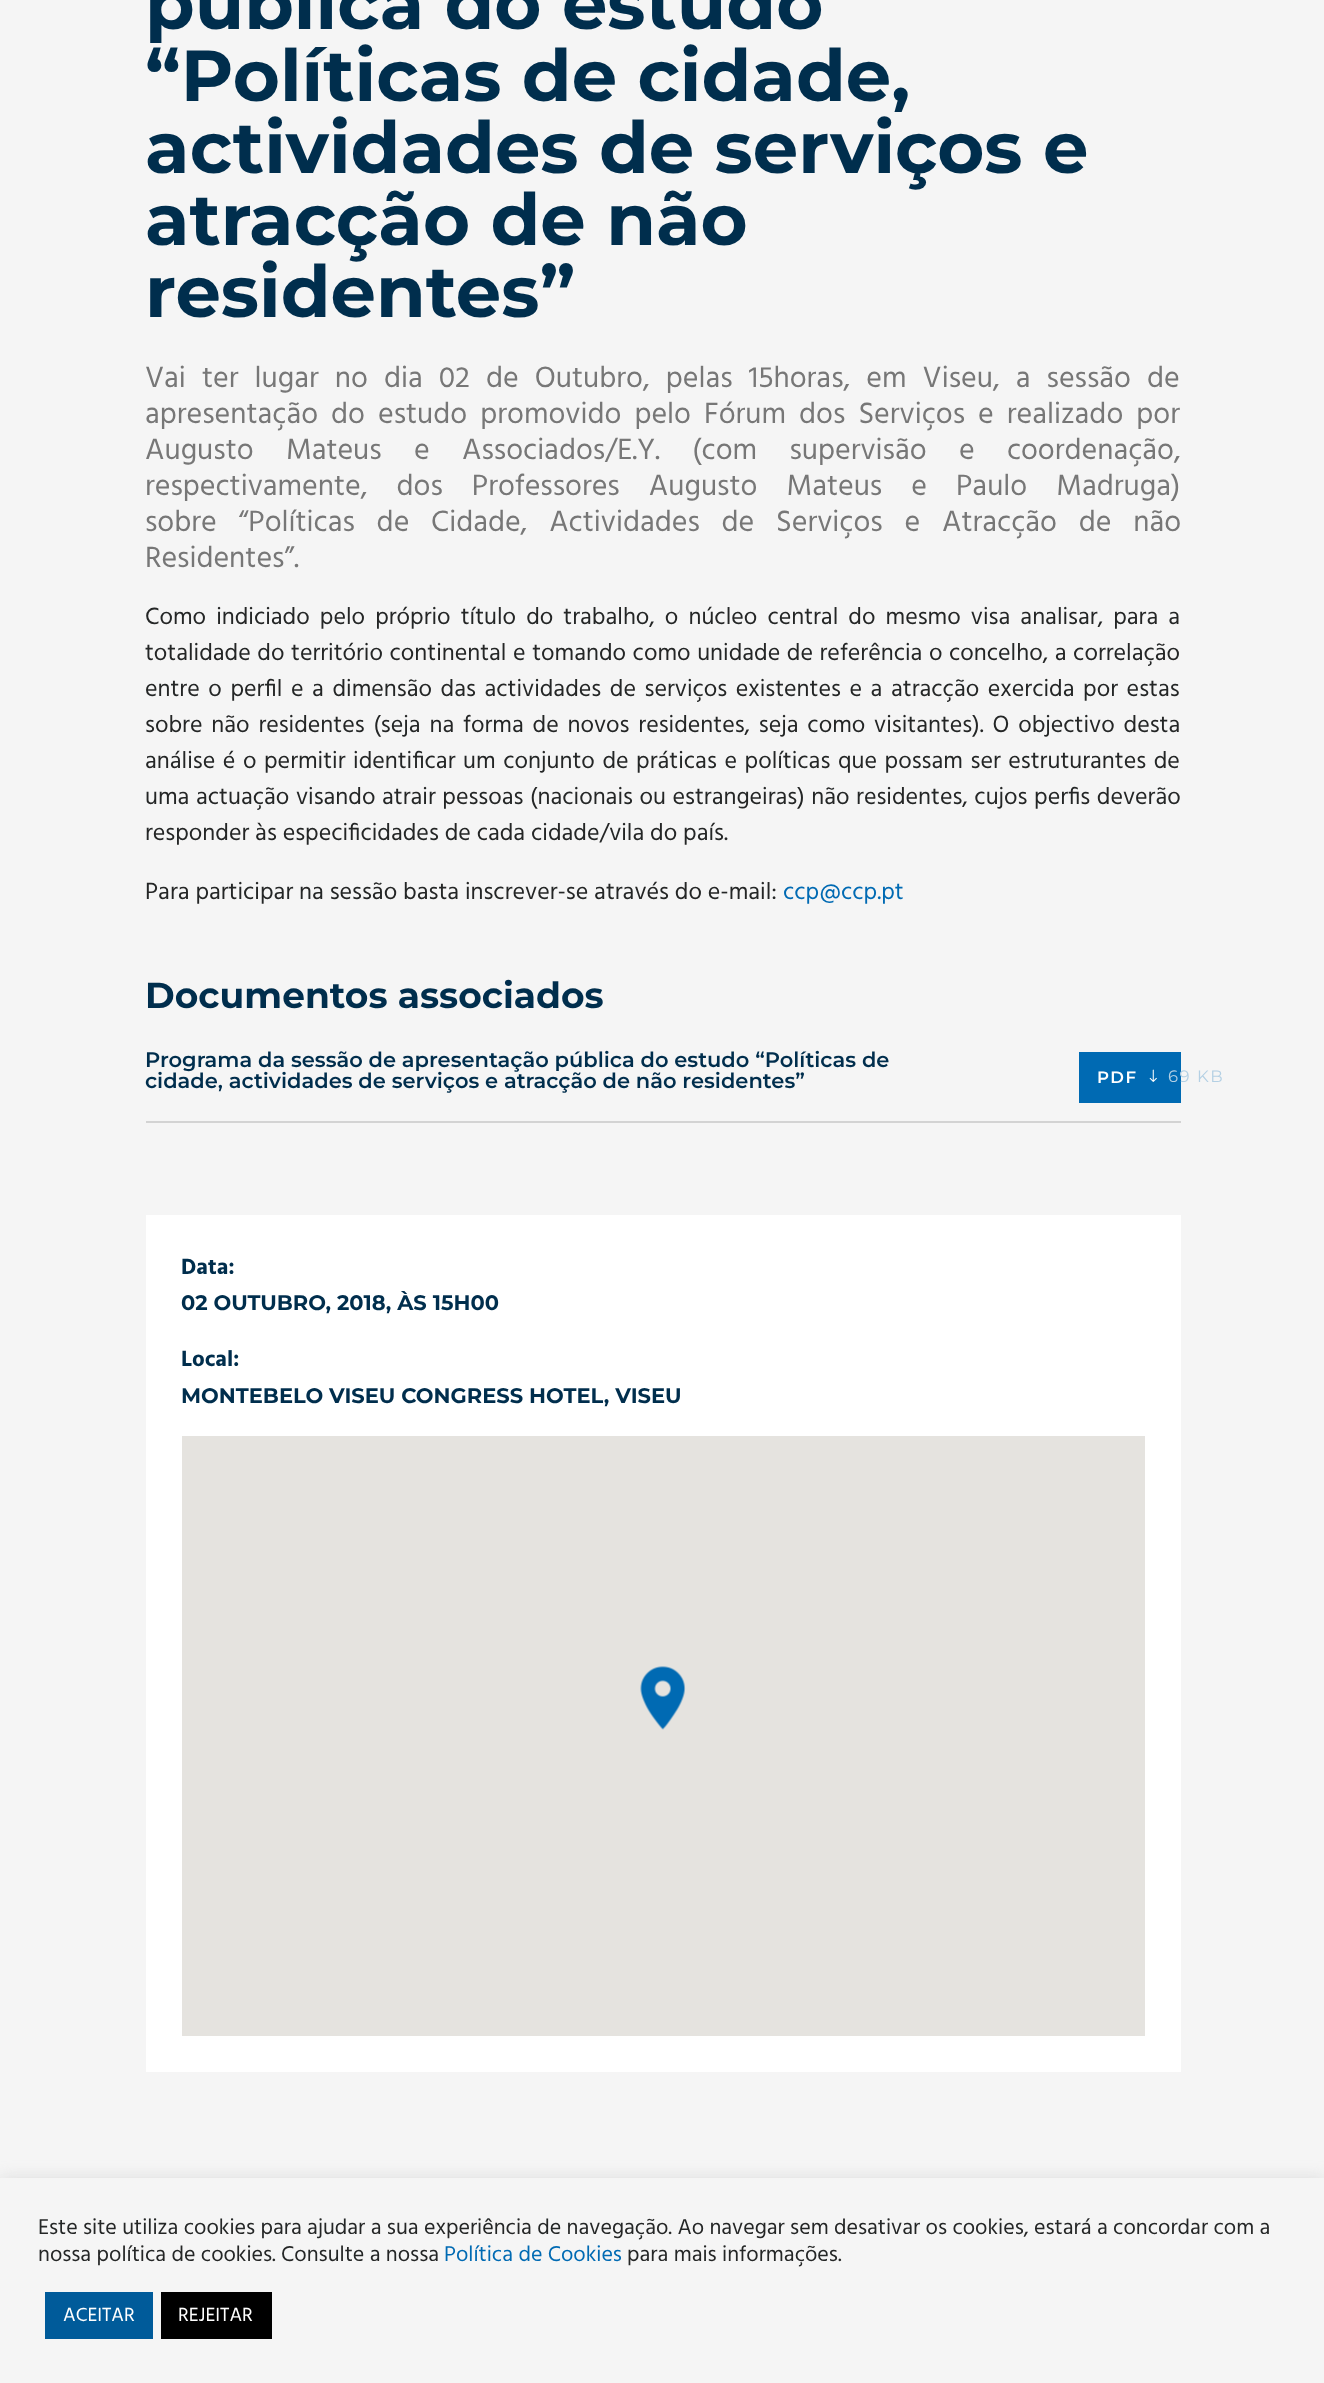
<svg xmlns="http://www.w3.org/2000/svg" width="1324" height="2383">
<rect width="100%" height="100%" fill="#f5f5f5"/>
<text x="145" y="29" style="font-family:Montserrat;font-size:72px;font-weight:bold;fill:#002e4d">pública do estudo</text>
<text x="145" y="101" style="font-family:Montserrat;font-size:72px;font-weight:bold;fill:#002e4d">“Políticas de cidade,</text>
<text x="145" y="173" style="font-family:Montserrat;font-size:72px;font-weight:bold;fill:#002e4d">actividades de serviços e</text>
<text x="145" y="245" style="font-family:Montserrat;font-size:72px;font-weight:bold;fill:#002e4d">atracção de não</text>
<text x="145" y="317" style="font-family:Montserrat;font-size:72px;font-weight:bold;fill:#002e4d">residentes”</text>
<text x="145" y="387" word-spacing="8.75" style="font-family:Hind;font-size:30px;fill:#777">Vai ter lugar no dia 02 de Outubro, pelas 15horas, em Viseu, a sessão de</text>
<text x="145" y="423" word-spacing="5.75" style="font-family:Hind;font-size:30px;fill:#777">apresentação do estudo promovido pelo Fórum dos Serviços e realizado por</text>
<text x="145" y="459" word-spacing="25" style="font-family:Hind;font-size:30px;fill:#777">Augusto Mateus e Associados/E.Y. (com supervisão e coordenação,</text>
<text x="145" y="495" word-spacing="21.75" style="font-family:Hind;font-size:30px;fill:#777">respectivamente, dos Professores Augusto Mateus e Paulo Madruga)</text>
<text x="145" y="531" word-spacing="14.5" style="font-family:Hind;font-size:30px;fill:#777">sobre “Políticas de Cidade, Actividades de Serviços e Atracção de não</text>
<text x="145" y="567" style="font-family:Hind;font-size:30px;fill:#777">Residentes”.</text>
<text x="145" y="624" word-spacing="4.25" style="font-family:Hind;font-size:24px;fill:#242626">Como indiciado pelo próprio título do trabalho, o núcleo central do mesmo visa analisar, para a</text>
<text x="145" y="660" word-spacing="0.75" style="font-family:Hind;font-size:24px;fill:#242626">totalidade do território continental e tomando como unidade de referência o concelho, a correlação</text>
<text x="145" y="696" word-spacing="2.75" style="font-family:Hind;font-size:24px;fill:#242626">entre o perfil e a dimensão das actividades de serviços existentes e a atracção exercida por estas</text>
<text x="145" y="732" word-spacing="3" style="font-family:Hind;font-size:24px;fill:#242626">sobre não residentes (seja na forma de novos residentes, seja como visitantes). O objectivo desta</text>
<text x="145" y="768" word-spacing="1.75" style="font-family:Hind;font-size:24px;fill:#242626">análise é o permitir identificar um conjunto de práticas e políticas que possam ser estruturantes de</text>
<text x="145" y="804" word-spacing="0.75" style="font-family:Hind;font-size:24px;fill:#242626">uma actuação visando atrair pessoas (nacionais ou estrangeiras) não residentes, cujos perfis deverão</text>
<text x="145" y="840" style="font-family:Hind;font-size:24px;fill:#242626">responder às especificidades de cada cidade/vila do país.</text>
<text x="145" y="899" style="font-family:Hind;font-size:24px;fill:#242626">Para participar na sessão basta inscrever-se através do e-mail:</text>
<text x="783" y="899" style="font-family:Hind;font-size:24px;fill:#006ab3">ccp@ccp.pt</text>
<text x="145" y="1008" style="font-family:Montserrat;font-size:36px;font-weight:bold;fill:#002e4d">Documentos associados</text>
<rect x="146" y="1121" width="1035" height="2" fill="#d3d3d3"/>
<text x="145" y="1067" style="font-family:Montserrat;font-size:21px;font-weight:600;fill:#002e4d">Programa da sessão de apresentação pública do estudo “Políticas de</text>
<text x="145" y="1088" style="font-family:Montserrat;font-size:21px;font-weight:600;fill:#002e4d">cidade, actividades de serviços e atracção de não residentes”</text>
<rect x="1079" y="1052" width="102" height="51" fill="#006ab3"/>
<text x="1097" y="1083" style="font-family:Montserrat;font-size:16.5px;font-weight:600;letter-spacing:1.5px;fill:#fff">PDF</text>
<image x="1149" y="1069" width="8" height="13" href="media/1.png"/>
<text x="1168" y="1082" style="font-family:Montserrat;font-size:16.5px;letter-spacing:1.5px;fill:#b4d0e4">69 KB</text>
<rect x="146" y="1215" width="1035" height="857" fill="#fff"/>
<text x="181" y="1274" style="font-family:Hind;font-size:22.5px;font-weight:bold;fill:#002e4d">Data:</text>
<text x="181" y="1310" style="font-family:Montserrat;font-size:21px;font-weight:bold;fill:#002e4d">02 OUTUBRO, 2018, ÀS 15H00</text>
<text x="181" y="1366" style="font-family:Hind;font-size:22.5px;font-weight:bold;fill:#002e4d">Local:</text>
<text x="181" y="1403" style="font-family:Montserrat;font-size:21px;font-weight:bold;fill:#002e4d">MONTEBELO VISEU CONGRESS HOTEL, VISEU</text>
<rect x="182" y="1436" width="963" height="600" fill="#e5e3df"/>
<image x="640" y="1666" width="46" height="64" href="media/2.png"/>
<rect y="2177" width="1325" height="205" fill="#acabab4d" filter="blur(7.5px)"/>
<rect y="2178" width="1324" height="205" fill="#f5f5f5"/>
<text x="38" y="2234" style="font-family:Hind;font-size:22px;fill:#242626">Este site utiliza cookies para ajudar a sua experiência de navegação. Ao navegar sem desativar os cookies, estará a concordar com a</text>
<text x="38" y="2261" style="font-family:Hind;font-size:22px;fill:#242626">nossa política de cookies. Consulte a nossa</text>
<text x="444" y="2261" style="font-family:Hind;font-size:22px;fill:#006ab3">Política de Cookies</text>
<text x="627" y="2261" style="font-family:Hind;font-size:22px;fill:#242626">para mais informações.</text>
<rect x="45" y="2292" width="108" height="47" fill="#005b9a"/>
<text x="63" y="2321" style="font-family:Hind;font-size:19.5px;fill:#fff">ACEITAR</text>
<rect x="161" y="2292" width="111" height="47" fill="#000"/>
<text x="178" y="2321" style="font-family:Hind;font-size:19.5px;fill:#fff">REJEITAR</text>
</svg>
